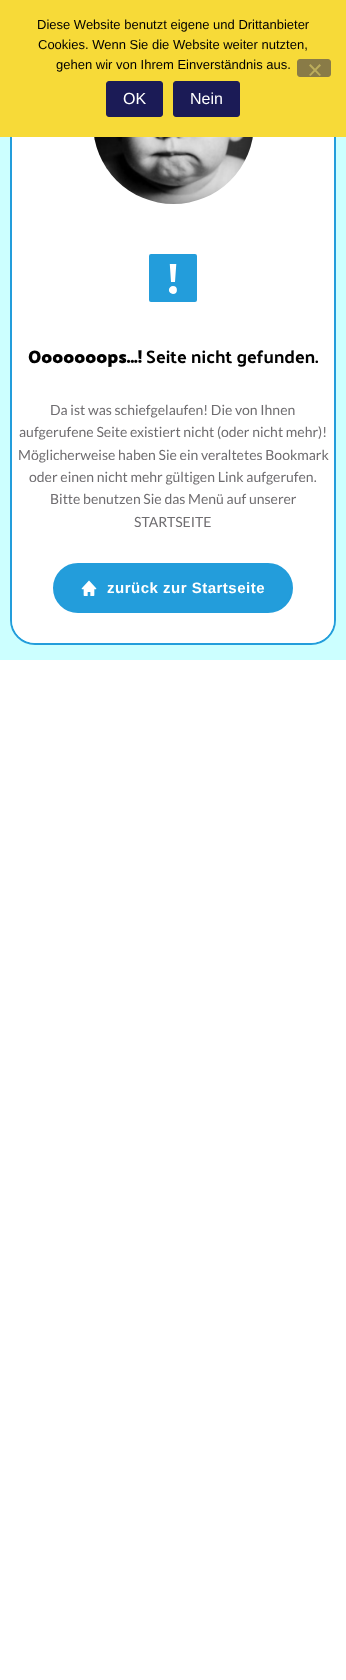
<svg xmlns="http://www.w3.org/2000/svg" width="346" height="1680">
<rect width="100%" height="100%" fill="#fff"/>
<rect y="137" width="346" height="523" fill="#cff"/>
<rect x="11" y="16" width="324" height="628" rx="24" fill="none" stroke="#239ddb" stroke-width="2"/>
<rect x="12" y="17" width="322" height="626" rx="23" fill="#fff"/>
<rect width="346" height="137" fill="#f7da38"/>
<text x="37" y="29" style="font-family:Liberation Sans;font-size:13px;fill:#000">Diese Website benutzt eigene und Drittanbieter</text>
<text x="38" y="49" style="font-family:Liberation Sans;font-size:13px;fill:#000">Cookies. Wenn Sie die Website weiter nutzten,</text>
<text x="56" y="69" style="font-family:Liberation Sans;font-size:13px;fill:#000">gehen wir von Ihrem Einverständnis aus.</text>
<rect x="297.5" y="59.5" width="33" height="17" rx="2.5" fill="#897b47" stroke="#897b47"/>
<path d="M319.5 64l1.5 1.5l-10.5 10.5l-1.5-1z" fill="#bcad5c"/>
<path d="M309 65.5l1.5-1.5l10.5 11l-1.5 1z" fill="#bcad5c"/>
<rect x="106.5" y="81.5" width="56" height="35" rx="2.5" fill="#1b1b56" stroke="#1b1b56"/>
<text x="123" y="104" style="font-family:Liberation Sans;font-size:16px;fill:#fff">OK</text>
<rect x="173.5" y="81.5" width="66" height="35" rx="2.5" fill="#1b1b56" stroke="#1b1b56"/>
<text x="190" y="104" style="font-family:Liberation Sans;font-size:16px;fill:#fff">Nein</text>
<image x="94" y="137" width="159" height="67" href="media/1.png"/>
<image x="149" y="254" width="48" height="48" href="media/2.png"/>
<text x="28" y="363" style="font-family:Palanquin Dark;font-size:18px;font-weight:bold;fill:#000">Ooooooops...!</text>
<text x="146" y="363" style="font-family:Palanquin Dark;font-size:18px;fill:#000">Seite nicht gefunden.</text>
<text x="50" y="415" style="font-family:Lato;font-size:14px;fill:#6f6d70">Da ist was schiefgelaufen! Die von Ihnen</text>
<text x="19" y="437" style="font-family:Lato;font-size:14px;fill:#6f6d70">aufgerufene Seite existiert nicht (oder nicht mehr)!</text>
<text x="18" y="460" style="font-family:Lato;font-size:14px;fill:#6f6d70">Möglicherweise haben Sie ein veraltetes Bookmark</text>
<text x="29" y="482" style="font-family:Lato;font-size:14px;fill:#6f6d70">oder einen nicht mehr gültigen Link aufgerufen.</text>
<text x="50" y="504" style="font-family:Lato;font-size:14px;fill:#6f6d70">Bitte benutzen Sie das Menü auf unserer</text>
<text x="134" y="527" style="font-family:Lato;font-size:14px;fill:#6f6d70">STARTSEITE</text>
<rect x="54" y="564" width="238" height="48" rx="24" fill="#239ddb" stroke="#239ddb" stroke-width="2"/>
<image x="81" y="580" width="16" height="16" href="media/3.png"/>
<text x="107" y="593" style="font-family:Liberation Sans;font-size:15px;font-weight:bold;letter-spacing:0.5px;fill:#fff">zurück zur Startseite</text>
</svg>
